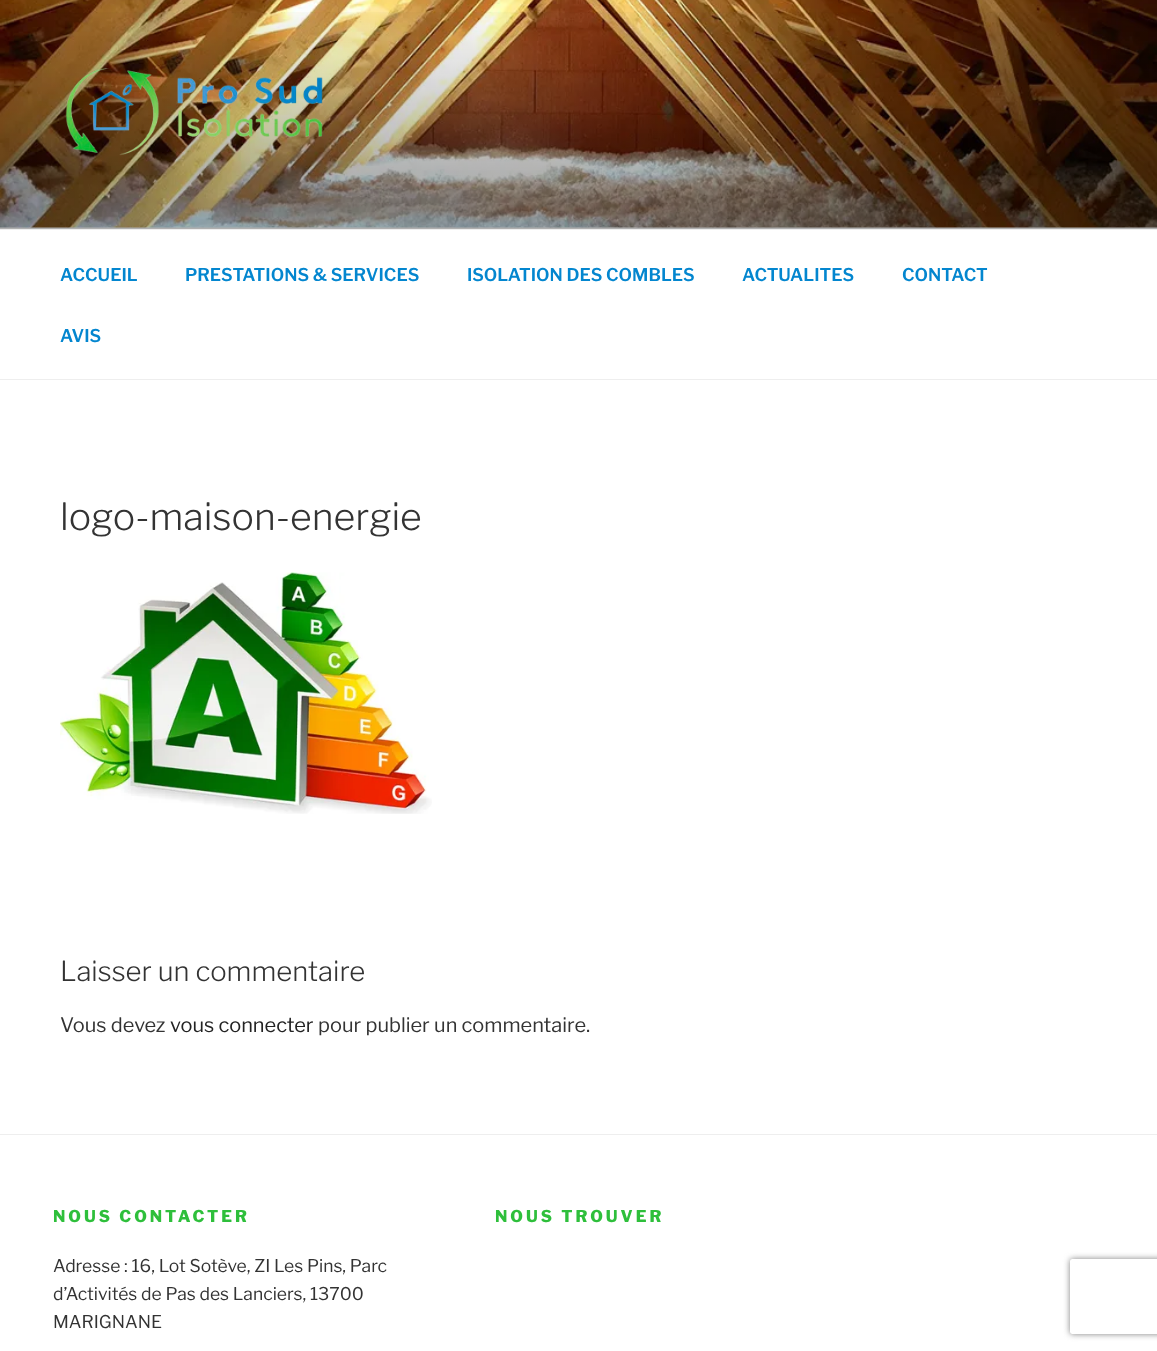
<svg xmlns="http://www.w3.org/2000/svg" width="1157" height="1351">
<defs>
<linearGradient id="g1" gradientUnits="userSpaceOnUse" x1="579" y1="0" x2="579" y2="229"><stop offset="0" stop-color="#000" stop-opacity="0"/><stop offset="0.75" stop-color="#000" stop-opacity="0.3"/><stop offset="1" stop-color="#000" stop-opacity="0.3"/></linearGradient>
<clipPath id="clip1"><path d="M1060 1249h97v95h-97zm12.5 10h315c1.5 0 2.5 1 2.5 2.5v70c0 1.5-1 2.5-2.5 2.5h-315c-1.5 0-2.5-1-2.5-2.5v-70c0-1.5 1-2.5 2.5-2.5z" clip-rule="evenodd"/></clipPath>
</defs>
<rect width="100%" height="100%" fill="#fff"/>
<rect y="227" width="1157" height="2" fill="#fafafa"/>
<image x="0" y="0" width="1157" height="228" href="media/1.png"/>
<rect y="12" width="1157" height="217" fill="url(#g1)"/>
<image x="65" y="68" width="258" height="88" href="media/2.png"/>
<rect y="229" width="1157" height="1" fill="#eee"/>
<rect y="379" width="1157" height="1" fill="#eee"/>
<text x="60" y="281" style="font-family:'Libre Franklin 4';font-size:17.5px;font-weight:100;fill:#0386cf">ACCUEIL</text>
<text x="185" y="281" style="font-family:'Libre Franklin 4';font-size:17.5px;font-weight:100;fill:#0386cf">PRESTATIONS &amp; SERVICES</text>
<text x="467" y="281" style="font-family:'Libre Franklin 4';font-size:17.5px;font-weight:100;fill:#0386cf">ISOLATION DES COMBLES</text>
<text x="742" y="281" style="font-family:'Libre Franklin 4';font-size:17.5px;font-weight:100;fill:#0386cf">ACTUALITES</text>
<text x="902" y="281" style="font-family:'Libre Franklin 4';font-size:17.5px;font-weight:100;fill:#0386cf">CONTACT</text>
<text x="60" y="342" style="font-family:'Libre Franklin 4';font-size:17.5px;font-weight:100;fill:#0386cf">AVIS</text>
<text x="60" y="530" style="font-family:'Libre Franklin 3';font-size:37.5px;font-weight:100;fill:#333">logo-maison-energie</text>
<image x="60" y="572" width="372" height="242" href="media/3.png"/>
<text x="60" y="981" style="font-family:'Libre Franklin 3';font-size:27.5px;font-weight:100;fill:#333">Laisser un commentaire</text>
<text x="60" y="1032" style="font-family:'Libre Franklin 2';font-size:20px;font-weight:100;fill:#333">Vous devez</text>
<text x="170" y="1032" style="font-family:'Libre Franklin 2';font-size:20px;font-weight:100;fill:#222">vous connecter</text>
<text x="318" y="1032" style="font-family:'Libre Franklin 2';font-size:20px;font-weight:100;fill:#333">pour publier un commentaire.</text>
<rect y="1134" width="1157" height="1" fill="#eee"/>
<text x="53" y="1222" style="font-family:Libre Franklin;font-size:16.25px;font-weight:100;letter-spacing:3px;fill:#2ebf3b">NOUS CONTACTER</text>
<text x="53" y="1272" style="font-family:'Libre Franklin 2';font-size:17.5px;font-weight:100;fill:#333">Adresse : 16, Lot Sotève, ZI Les Pins, Parc</text>
<text x="53" y="1300" style="font-family:'Libre Franklin 2';font-size:17.5px;font-weight:100;fill:#333">d’Activités de Pas des Lanciers, 13700</text>
<text x="53" y="1328" style="font-family:'Libre Franklin 2';font-size:17.5px;font-weight:100;fill:#333">MARIGNANE</text>
<text x="495" y="1222" style="font-family:Libre Franklin;font-size:16.25px;font-weight:100;letter-spacing:3px;fill:#2ebf3b">NOUS TROUVER</text>
<g clip-path="url(#clip1)">
<rect x="1070" y="1259" width="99" height="75" rx="2.5" fill="#808080" filter="blur(3px)"/>
</g>
</svg>
